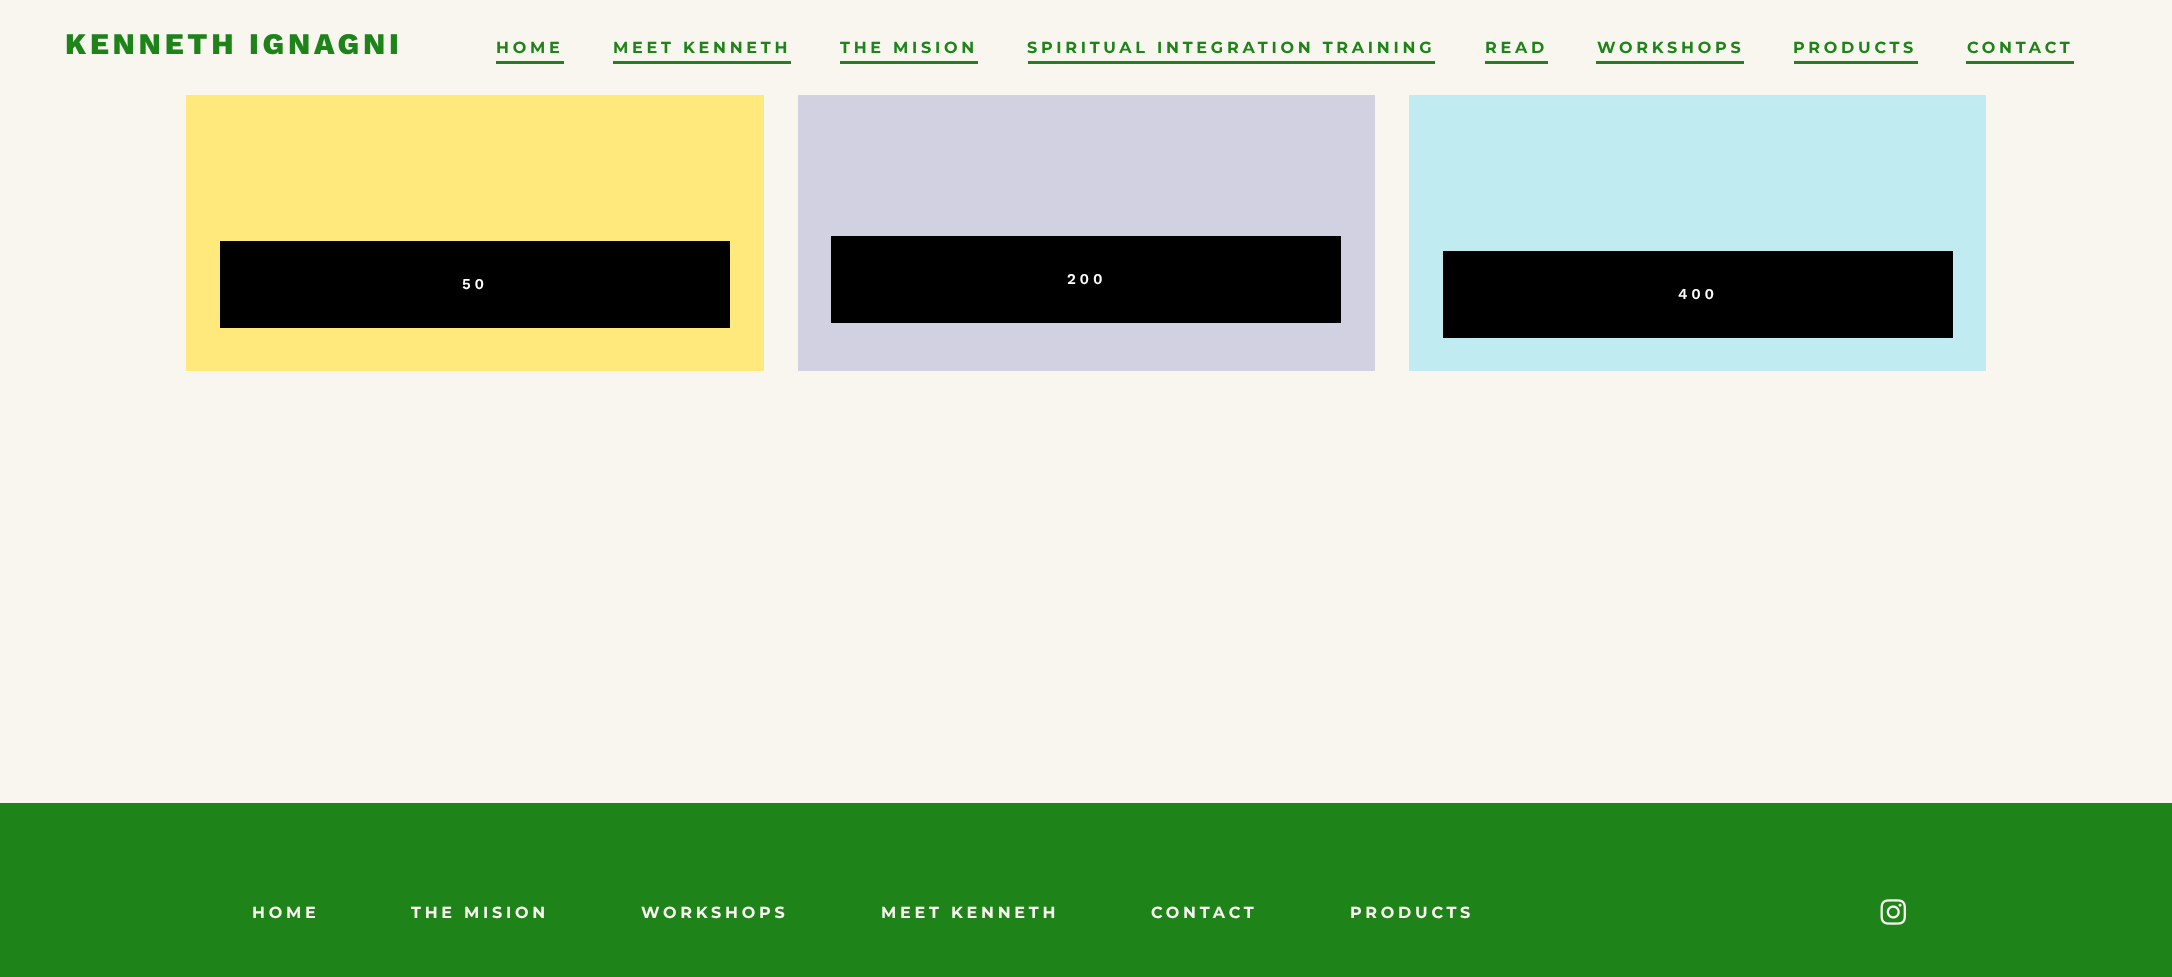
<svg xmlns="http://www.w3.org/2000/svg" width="2172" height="977">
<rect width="100%" height="100%" fill="#f9f5ef"/>
<text x="65" y="54" style="font-family:Work Sans;font-size:30px;font-weight:800;letter-spacing:3.75px;fill:#1e841a">KENNETH IGNAGNI</text>
<text x="496" y="53" style="font-family:Montserrat;font-size:16px;font-weight:bold;letter-spacing:3.75px;fill:#1e841a">HOME</text>
<rect x="496" y="61" width="68" height="3" fill="#1e841a"/>
<text x="613" y="53" style="font-family:Montserrat;font-size:16px;font-weight:bold;letter-spacing:3.75px;fill:#1e841a">MEET KENNETH</text>
<rect x="613" y="61" width="178" height="3" fill="#1e841a"/>
<text x="840" y="53" style="font-family:Montserrat;font-size:16px;font-weight:bold;letter-spacing:3.75px;fill:#1e841a">THE MISION</text>
<rect x="840" y="61" width="138" height="3" fill="#1e841a"/>
<text x="1027" y="53" style="font-family:Montserrat;font-size:16px;font-weight:bold;letter-spacing:3.75px;fill:#1e841a">SPIRITUAL INTEGRATION TRAINING</text>
<rect x="1028" y="61" width="407" height="3" fill="#1e841a"/>
<text x="1485" y="53" style="font-family:Montserrat;font-size:16px;font-weight:bold;letter-spacing:3.75px;fill:#1e841a">READ</text>
<rect x="1485" y="61" width="63" height="3" fill="#1e841a"/>
<text x="1597" y="53" style="font-family:Montserrat;font-size:16px;font-weight:bold;letter-spacing:3.75px;fill:#1e841a">WORKSHOPS</text>
<rect x="1596" y="61" width="148" height="3" fill="#1e841a"/>
<text x="1793" y="53" style="font-family:Montserrat;font-size:16px;font-weight:bold;letter-spacing:3.75px;fill:#1e841a">PRODUCTS</text>
<rect x="1794" y="61" width="124" height="3" fill="#1e841a"/>
<text x="1967" y="53" style="font-family:Montserrat;font-size:16px;font-weight:bold;letter-spacing:3.75px;fill:#1e841a">CONTACT</text>
<rect x="1966" y="61" width="108" height="3" fill="#1e841a"/>
<rect x="186" y="95" width="578" height="276" fill="#ffe97d"/>
<rect x="220" y="241" width="510" height="87" fill="#000"/>
<text x="462" y="289" style="font-family:Work Sans;font-size:15px;font-weight:600;letter-spacing:3.75px;fill:#fff">50</text>
<rect x="798" y="95" width="577" height="276" fill="#d1d1e1"/>
<rect x="831" y="236" width="510" height="87" fill="#000"/>
<text x="1067" y="284" style="font-family:Work Sans;font-size:15px;font-weight:600;letter-spacing:3.75px;fill:#fff">200</text>
<rect x="1409" y="95" width="577" height="276" fill="#c0ebf1"/>
<rect x="1443" y="251" width="510" height="87" fill="#000"/>
<text x="1678" y="299" style="font-family:Work Sans;font-size:15px;font-weight:600;letter-spacing:3.75px;fill:#fff">400</text>
<rect y="803" width="2172" height="174" fill="#1e841a"/>
<text x="252" y="918" style="font-family:Montserrat;font-size:16px;font-weight:bold;letter-spacing:3.75px;fill:#f9f6f0">HOME</text>
<text x="411" y="918" style="font-family:Montserrat;font-size:16px;font-weight:bold;letter-spacing:3.75px;fill:#f9f6f0">THE MISION</text>
<text x="641" y="918" style="font-family:Montserrat;font-size:16px;font-weight:bold;letter-spacing:3.75px;fill:#f9f6f0">WORKSHOPS</text>
<text x="881" y="918" style="font-family:Montserrat;font-size:16px;font-weight:bold;letter-spacing:3.75px;fill:#f9f6f0">MEET KENNETH</text>
<text x="1151" y="918" style="font-family:Montserrat;font-size:16px;font-weight:bold;letter-spacing:3.75px;fill:#f9f6f0">CONTACT</text>
<text x="1350" y="918" style="font-family:Montserrat;font-size:16px;font-weight:bold;letter-spacing:3.75px;fill:#f9f6f0">PRODUCTS</text>
<image x="1880" y="899" width="26" height="26" href="media/1.png"/>
</svg>
